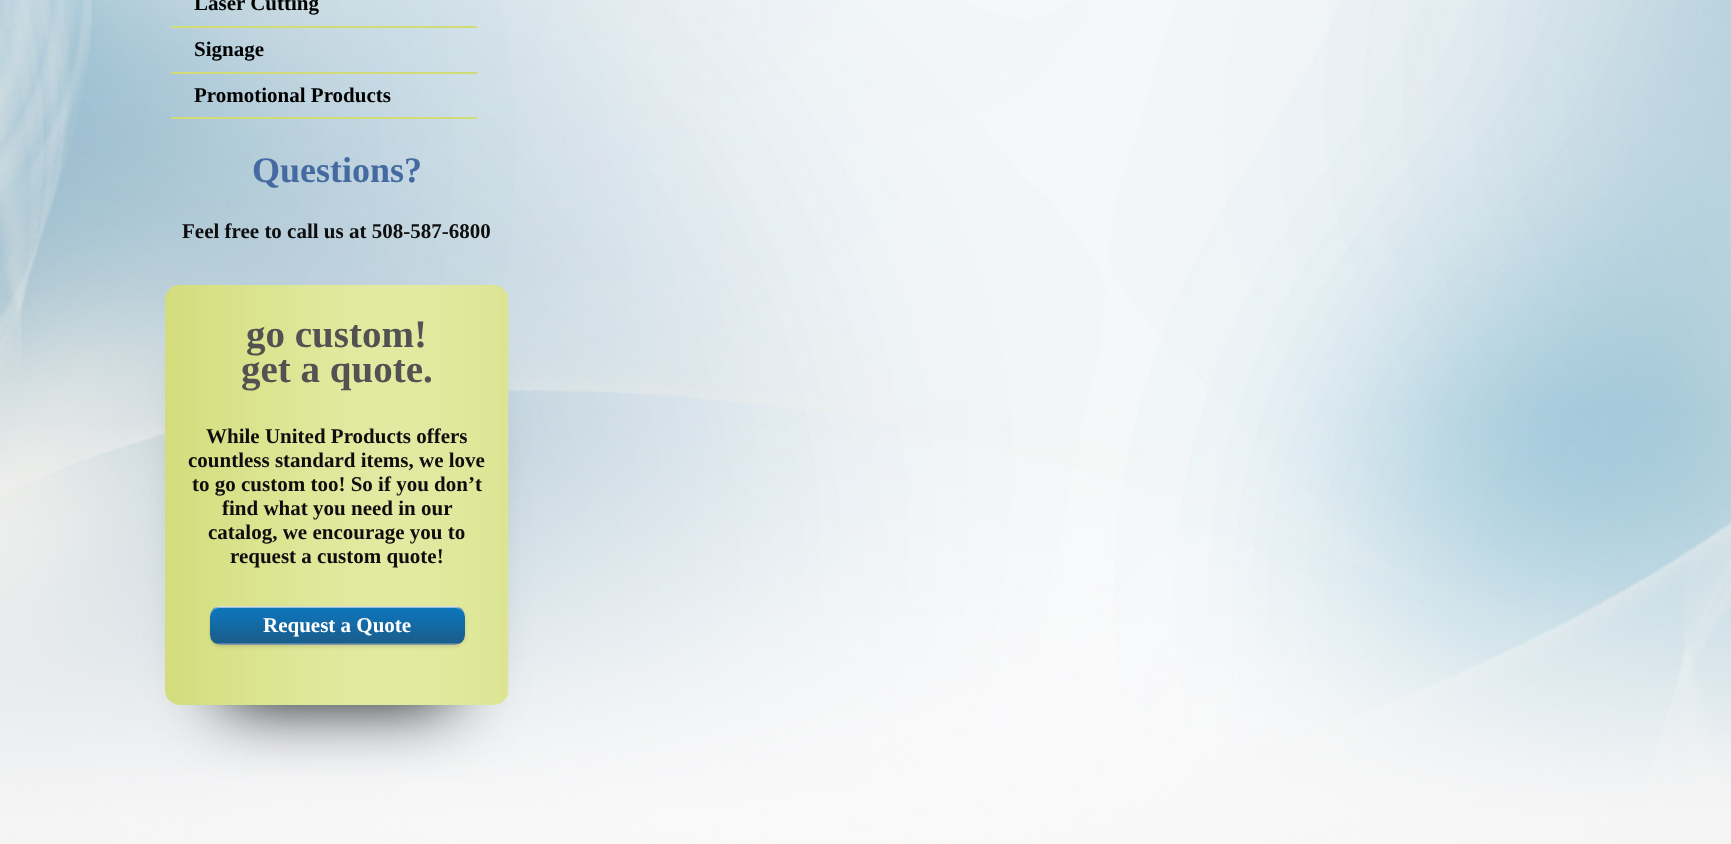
<svg xmlns="http://www.w3.org/2000/svg" width="1731" height="844">
<rect width="100%" height="100%" fill="#fff"/>
<image x="0" y="0" width="1731" height="844" href="media/1.png"/>
<rect x="171" y="26" width="306" height="2" fill="#d1dc78"/>
<text x="194" y="10" style="font-family:Liberation Serif;font-size:21px;font-weight:bold;fill:#000">Laser Cutting</text>
<rect x="171" y="72" width="306" height="2" fill="#d1dc78"/>
<text x="194" y="56" style="font-family:Liberation Serif;font-size:21px;font-weight:bold;fill:#000">Signage</text>
<rect x="171" y="117" width="306" height="2" fill="#d1dc78"/>
<text x="194" y="102" style="font-family:Liberation Serif;font-size:21px;font-weight:bold;fill:#000">Promotional Products</text>
<text x="252" y="182" style="font-family:Liberation Serif;font-size:36px;font-weight:bold;fill:#456aa1">Questions?</text>
<text x="182" y="238" style="font-family:Liberation Serif;font-size:21px;font-weight:bold;fill:#0e0e0e">Feel free to call us at 508-587-6800</text>
<rect x="225" y="401" width="224" height="300" fill="#000" filter="blur(34px)"/>
<image x="165" y="285" width="344" height="420" href="media/2.png"/>
<text x="246" y="347" style="font-family:Liberation Serif;font-size:39px;font-weight:bold;fill:#525252">go custom!</text>
<text x="241" y="382" style="font-family:Liberation Serif;font-size:39px;font-weight:bold;fill:#525252">get a quote.</text>
<text x="206" y="443" style="font-family:Liberation Serif;font-size:21px;font-weight:bold;fill:#0e0e0e">While United Products offers</text>
<text x="188" y="467" style="font-family:Liberation Serif;font-size:21px;font-weight:bold;fill:#0e0e0e">countless standard items, we love</text>
<text x="192" y="491" style="font-family:Liberation Serif;font-size:21px;font-weight:bold;fill:#0e0e0e">to go custom too! So if you don’t</text>
<text x="222" y="515" style="font-family:Liberation Serif;font-size:21px;font-weight:bold;fill:#0e0e0e">find what you need in our</text>
<text x="208" y="539" style="font-family:Liberation Serif;font-size:21px;font-weight:bold;fill:#0e0e0e">catalog, we encourage you to</text>
<text x="230" y="563" style="font-family:Liberation Serif;font-size:21px;font-weight:bold;fill:#0e0e0e">request a custom quote!</text>
<rect x="210" y="608" width="255" height="39" rx="11" fill="#0000001a" filter="blur(1.5px)"/>
<image x="210" y="606" width="255" height="39" href="media/3.png"/>
<path d="M220 608h234c6 0 11 4 11 10v-1c0-6-5-11-11-11h-233c-6 0-11 5-11 11v1c0-6 5-10 10-10z" fill="#ffffff4d"/>
<path d="M210 633v1c0 6 5 11 11 11h233c6 0 11-5 11-11v-1c0 6-5 11-11 11h-234c-5 0-10-5-10-11z" fill="#00000012"/>
<text x="263" y="632" style="font-family:Liberation Serif;font-size:21px;font-weight:bold;fill:#fff">Request a Quote</text>
</svg>
